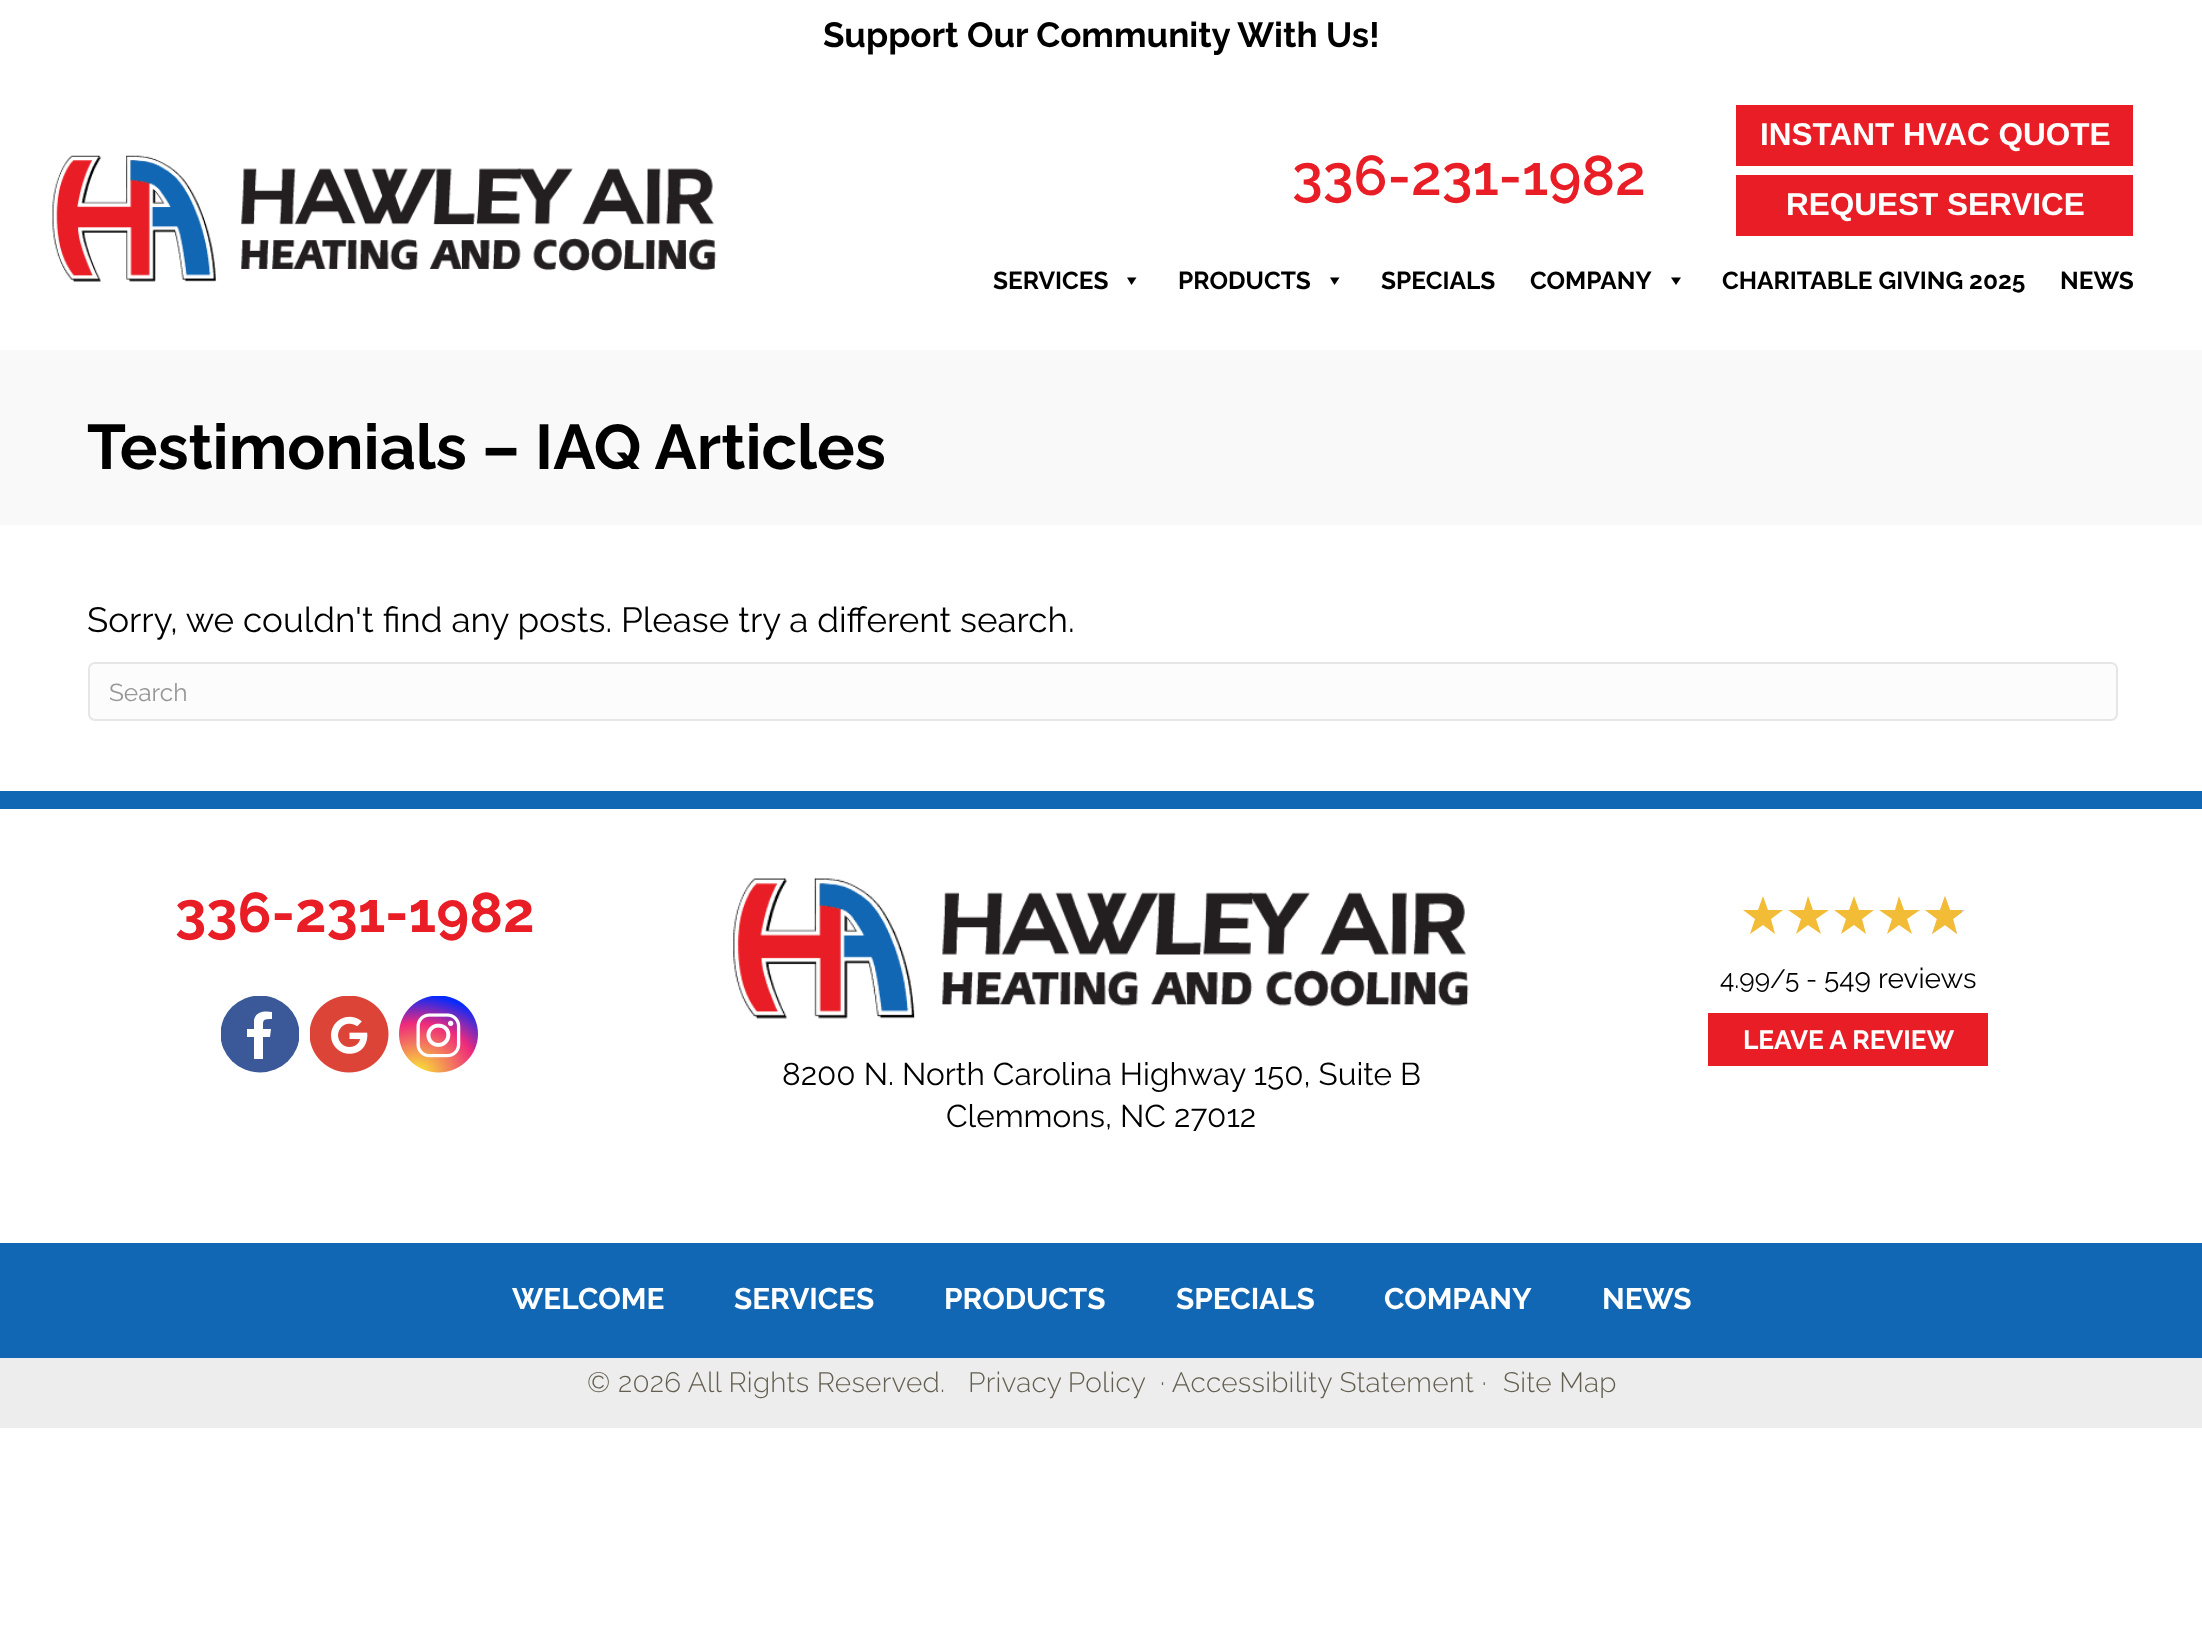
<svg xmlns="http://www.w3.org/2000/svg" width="2202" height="1644">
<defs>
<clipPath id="clip1"><rect x="221" y="996" width="78" height="77"/></clipPath>
<clipPath id="clip2"><rect x="1734" y="896" width="228" height="61"/></clipPath>
</defs>
<rect width="100%" height="100%" fill="#fff"/>
<text x="823" y="47" style="font-family:Raleway;font-size:35px;font-weight:bold;fill:#000">Support Our Community With Us!</text>
<image x="52" y="155" width="664" height="127" href="media/1.png"/>
<text x="1292" y="195" style="font-family:Raleway;font-size:56px;font-weight:600;fill:#e91d25">336-231-1982</text>
<rect x="1736" y="105" width="397" height="61" fill="#e91d25"/>
<text x="1760" y="145" style="font-family:Liberation Sans;font-size:31.5px;font-weight:bold;fill:#fff">INSTANT HVAC QUOTE</text>
<rect x="1736" y="175" width="397" height="61" fill="#e91d25"/>
<text x="1786" y="215" style="font-family:Liberation Sans;font-size:31.5px;font-weight:bold;fill:#fff">REQUEST SERVICE</text>
<text x="993" y="289" style="font-family:Raleway;font-size:24.5px;font-weight:bold;fill:#000">SERVICES</text>
<path d="M1136.5 277.5l-5 7.5l-4.5-7.5z" fill="#000"/>
<text x="1178" y="289" style="font-family:Raleway;font-size:24.5px;font-weight:bold;fill:#000">PRODUCTS</text>
<path d="M1339.5 277.5l-5 7.5l-4.5-7.5z" fill="#000"/>
<text x="1381" y="289" style="font-family:Raleway;font-size:24.5px;font-weight:bold;fill:#000">SPECIALS</text>
<text x="1530" y="289" style="font-family:Raleway;font-size:24.5px;font-weight:bold;fill:#000">COMPANY</text>
<path d="M1681 277.5l-5 7.5l-5-7.5z" fill="#000"/>
<text x="1722" y="289" style="font-family:Raleway;font-size:24.5px;font-weight:bold;fill:#000">CHARITABLE GIVING 2025</text>
<text x="2060" y="289" style="font-family:Raleway;font-size:24.5px;font-weight:bold;fill:#000">NEWS</text>
<rect y="350" width="2202" height="175" fill="#f9f9f9"/>
<text x="87" y="469" style="font-family:Raleway;font-size:63px;font-weight:bold;fill:#000">Testimonials – IAQ Articles</text>
<text x="87" y="632" style="font-family:Raleway;font-size:35px;fill:#000">Sorry, we couldn't find any posts. Please try a different search.</text>
<rect x="89" y="663" width="2028" height="57" rx="6" fill="#fcfcfc" stroke="#e6e6e6" stroke-width="2"/>
<text x="109" y="701" style="font-family:Raleway;font-size:24.5px;fill:#979797">Search</text>
<rect y="791" width="2202" height="18" fill="#1167b3"/>
<text x="175" y="932" style="font-family:Raleway;font-size:56px;font-weight:bold;fill:#e91d25">336-231-1982</text>
<g clip-path="url(#clip1)">
<ellipse cx="260" cy="1034" rx="39.5" ry="38.5" fill="#3b5998"/>
</g>
<path d="M272 1019c-10 0-9 1-9 10h8l-1 8h-7v22h-9v-22h-7v-8h7v-9c2-9 11-9 18-8z" fill="#fff"/>
<image x="310" y="996" width="79" height="77" href="media/2.png"/>
<image x="399" y="996" width="79" height="77" href="media/3.png"/>
<path d="M1763 896l5 14l-5-14l5 14h15l-12 9l4 15l-12-9l-13 9l5-15l-12-9h15z" fill="#f3bc36"/>
<path d="M1808 896l5 14l-5-14l5 14h16l-13 9l5 15l-13-9l-12 9l5-15l-13-9h16z" fill="#f3bc36"/>
<path d="M1854 896l5 14l-5-14l5 14h15l-12 9l4 15l-12-9l-13 9l5-15l-12-9h15z" fill="#f3bc36"/>
<path d="M1899 896l5 14l-5-14l5 14h16l-13 9l5 15l-13-9l-12 9l5-15l-13-9h16z" fill="#f3bc36"/>
<path d="M1945 896l5 14l-5-14l5 14h15l-12 9l4 15l-12-9l-13 9l5-15l-12-9h15z" fill="#ccc"/>
<g clip-path="url(#clip2)">
<path d="M1945 896l5 14l-5-14l5 14h15l-12 9l4 15l-12-9l-13 9l5-15l-12-9h15z" fill="#f3bc36"/>
</g>
<text x="1720" y="988" style="font-family:Raleway;font-size:26.25px;fill:#000">4.99/5 -</text>
<text x="1824" y="988" style="font-family:Raleway;font-size:28px;fill:#000">549 reviews</text>
<rect x="1708" y="1013" width="280" height="53" fill="#e91d25"/>
<text x="1743" y="1049" style="font-family:Raleway;font-size:26.25px;font-weight:bold;fill:#fff">LEAVE A REVIEW</text>
<image x="733" y="878" width="736" height="141" href="media/4.png"/>
<text x="782" y="1085" style="font-family:Raleway;font-size:31.5px;fill:#000">8200 N. North Carolina Highway 150, Suite B</text>
<text x="946" y="1127" style="font-family:Raleway;font-size:31.5px;fill:#000">Clemmons, NC 27012</text>
<rect y="1243" width="2202" height="115" fill="#1167b3"/>
<text x="512" y="1309" style="font-family:Raleway;font-size:29.75px;font-weight:bold;fill:#fff">WELCOME</text>
<text x="734" y="1309" style="font-family:Raleway;font-size:29.75px;font-weight:bold;fill:#fff">SERVICES</text>
<text x="944" y="1309" style="font-family:Raleway;font-size:29.75px;font-weight:bold;fill:#fff">PRODUCTS</text>
<text x="1176" y="1309" style="font-family:Raleway;font-size:29.75px;font-weight:bold;fill:#fff">SPECIALS</text>
<text x="1384" y="1309" style="font-family:Raleway;font-size:29.75px;font-weight:bold;fill:#fff">COMPANY</text>
<text x="1602" y="1309" style="font-family:Raleway;font-size:29.75px;font-weight:bold;fill:#fff">NEWS</text>
<rect y="1358" width="2202" height="70" fill="#ededed"/>
<text x="587" y="1392" style="font-family:Raleway;font-size:28px;font-weight:300;letter-spacing:0.25px;fill:#645f50">© 2026 All Rights Reserved.</text>
<text x="968" y="1392" word-spacing="-1" style="font-family:Raleway;font-size:28px;font-weight:300;letter-spacing:0.25px;fill:#645f50">Privacy Policy</text>
<text x="1160" y="1392" style="font-family:Raleway;font-size:28px;font-weight:300;letter-spacing:0.25px;fill:#645f50">· Accessibility Statement ·</text>
<text x="1503" y="1392" style="font-family:Raleway;font-size:28px;font-weight:300;letter-spacing:0.25px;fill:#645f50">Site Map</text>
</svg>
